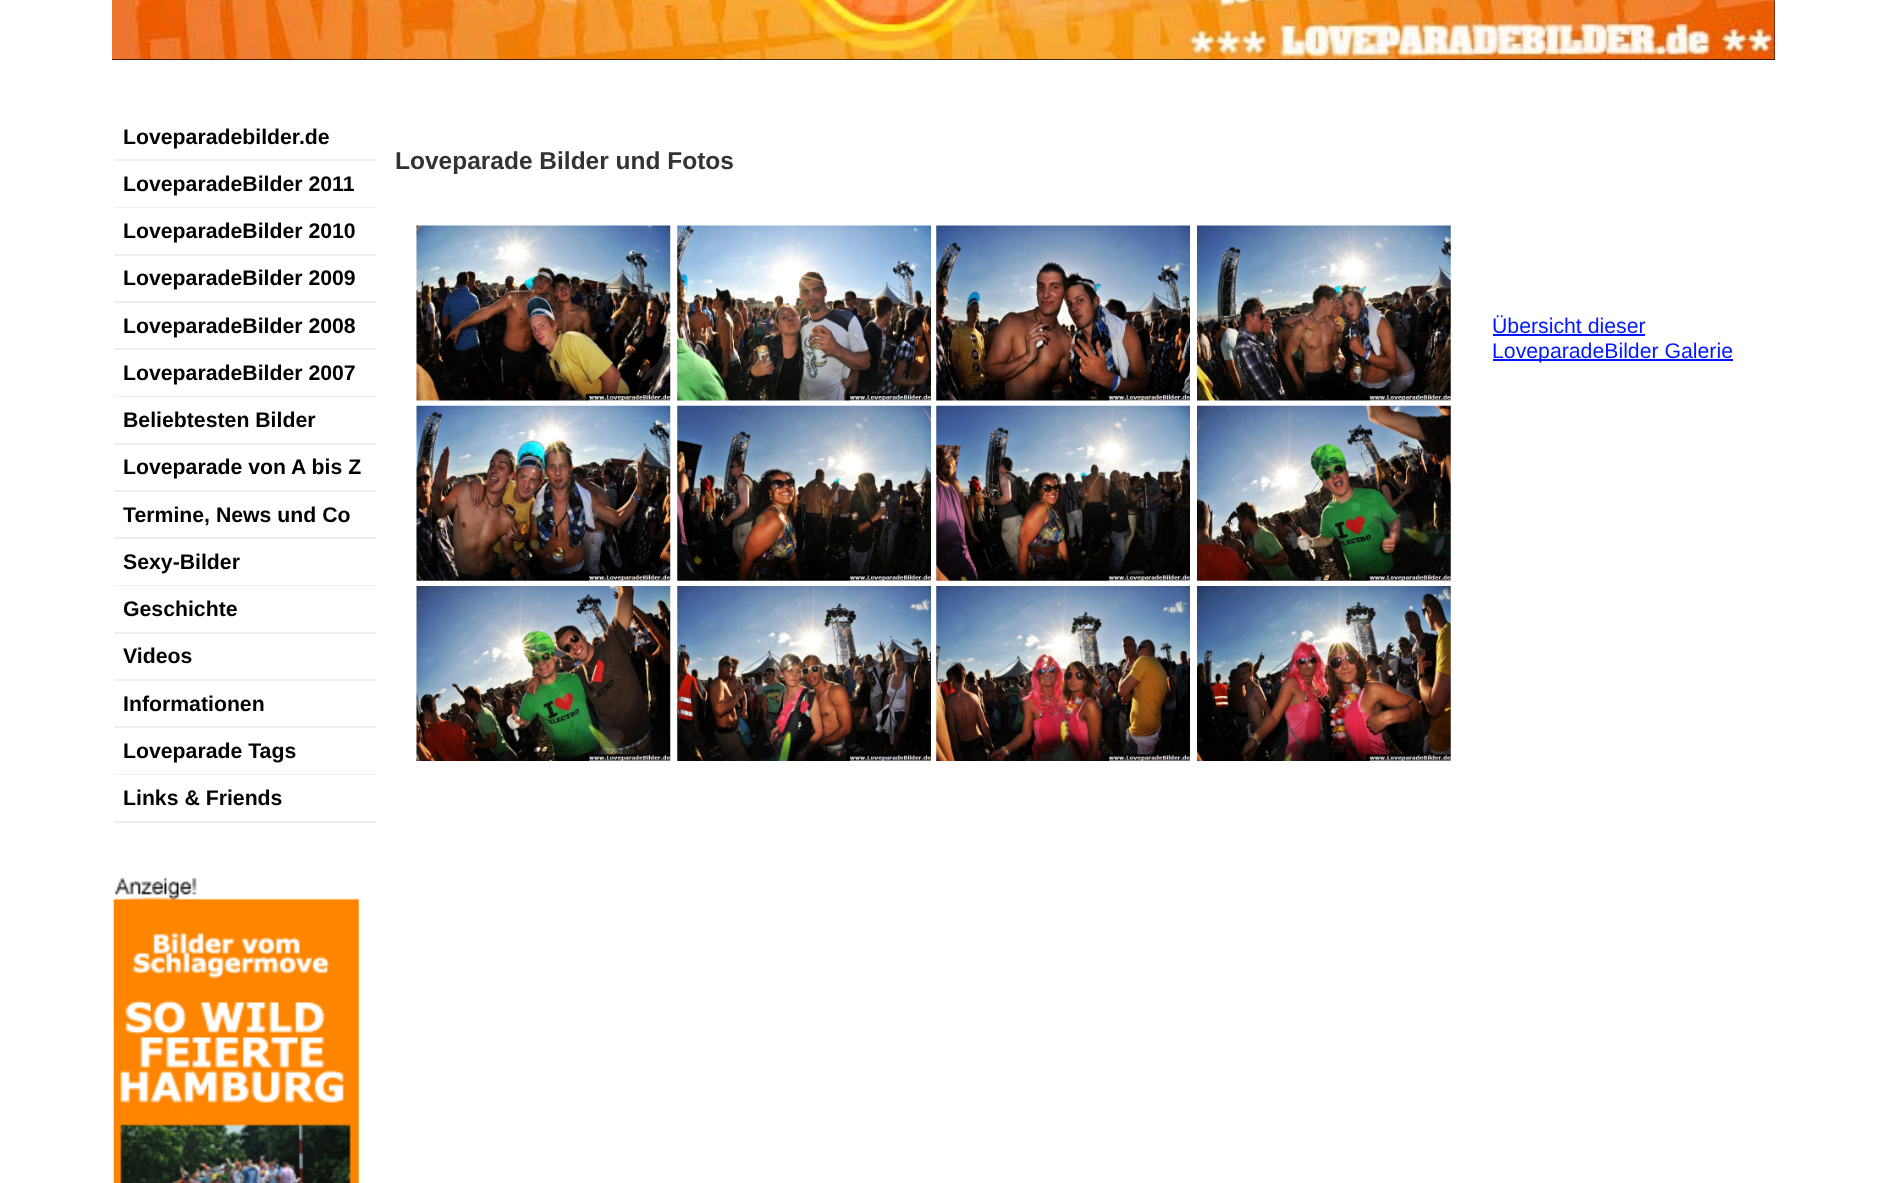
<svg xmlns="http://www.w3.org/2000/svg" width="1884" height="1183">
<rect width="100%" height="100%" fill="#fff"/>
<rect x="112" width="1663" height="60" fill="#000"/>
<image x="112" y="0" width="1663" height="60" href="media/1.png"/>
<rect x="114" y="159" width="262" height="2" fill="#eee"/>
<text x="123" y="144" style="font-family:Liberation Sans;font-size:21.25px;font-weight:bold;fill:#000">Loveparadebilder.de</text>
<rect x="114" y="207" width="262" height="1" fill="#eee"/>
<text x="123" y="191" style="font-family:Liberation Sans;font-size:21.25px;font-weight:bold;fill:#000">LoveparadeBilder 2011</text>
<rect x="114" y="254" width="262" height="2" fill="#eee"/>
<text x="123" y="238" style="font-family:Liberation Sans;font-size:21.25px;font-weight:bold;fill:#000">LoveparadeBilder 2010</text>
<rect x="114" y="301" width="262" height="2" fill="#eee"/>
<text x="123" y="285" style="font-family:Liberation Sans;font-size:21.25px;font-weight:bold;fill:#000">LoveparadeBilder 2009</text>
<rect x="114" y="348" width="262" height="2" fill="#eee"/>
<text x="123" y="333" style="font-family:Liberation Sans;font-size:21.25px;font-weight:bold;fill:#000">LoveparadeBilder 2008</text>
<rect x="114" y="396" width="262" height="1" fill="#eee"/>
<text x="123" y="380" style="font-family:Liberation Sans;font-size:21.25px;font-weight:bold;fill:#000">LoveparadeBilder 2007</text>
<rect x="114" y="443" width="262" height="2" fill="#eee"/>
<text x="123" y="427" style="font-family:Liberation Sans;font-size:21.25px;font-weight:bold;fill:#000">Beliebtesten Bilder</text>
<rect x="114" y="490" width="262" height="2" fill="#eee"/>
<text x="123" y="474" style="font-family:Liberation Sans;font-size:21.25px;font-weight:bold;fill:#000">Loveparade von A bis Z</text>
<rect x="114" y="537" width="262" height="2" fill="#eee"/>
<text x="123" y="522" style="font-family:Liberation Sans;font-size:21.25px;font-weight:bold;fill:#000">Termine, News und Co</text>
<rect x="114" y="585" width="262" height="1" fill="#eee"/>
<text x="123" y="569" style="font-family:Liberation Sans;font-size:21.25px;font-weight:bold;fill:#000">Sexy-Bilder</text>
<rect x="114" y="632" width="262" height="2" fill="#eee"/>
<text x="123" y="616" style="font-family:Liberation Sans;font-size:21.25px;font-weight:bold;fill:#000">Geschichte</text>
<rect x="114" y="679" width="262" height="2" fill="#eee"/>
<text x="123" y="663" style="font-family:Liberation Sans;font-size:21.25px;font-weight:bold;fill:#000">Videos</text>
<rect x="114" y="726" width="262" height="2" fill="#eee"/>
<text x="123" y="711" style="font-family:Liberation Sans;font-size:21.25px;font-weight:bold;fill:#000">Informationen</text>
<rect x="114" y="774" width="262" height="1" fill="#eee"/>
<text x="123" y="758" style="font-family:Liberation Sans;font-size:21.25px;font-weight:bold;fill:#000">Loveparade Tags</text>
<rect x="114" y="821" width="262" height="2" fill="#eee"/>
<text x="123" y="805" style="font-family:Liberation Sans;font-size:21.25px;font-weight:bold;fill:#000">Links &amp; Friends</text>
<image x="113" y="877" width="246" height="306" href="media/2.png"/>
<text x="395" y="169" style="font-family:Liberation Sans;font-size:24.5px;font-weight:bold;fill:#333">Loveparade Bilder und Fotos</text>
<image x="416" y="225" width="255" height="176" href="media/3.png"/>
<image x="677" y="225" width="254" height="176" href="media/4.png"/>
<image x="936" y="225" width="254" height="176" href="media/5.png"/>
<image x="1197" y="225" width="254" height="176" href="media/6.png"/>
<image x="416" y="405" width="255" height="176" href="media/7.png"/>
<image x="677" y="405" width="254" height="176" href="media/8.png"/>
<image x="936" y="405" width="254" height="176" href="media/9.png"/>
<image x="1197" y="405" width="254" height="176" href="media/10.png"/>
<image x="416" y="586" width="255" height="175" href="media/11.png"/>
<image x="677" y="586" width="254" height="175" href="media/12.png"/>
<image x="936" y="586" width="254" height="175" href="media/13.png"/>
<image x="1197" y="586" width="254" height="175" href="media/14.png"/>
<text x="1492" y="333" style="font-family:Liberation Sans;font-size:21.25px;fill:#0018ff">Übersicht dieser</text>
<rect x="1493" y="334" width="152" height="2" fill="#0018ff"/>
<rect x="1493" y="359" width="240" height="2" fill="#0018ff"/>
<text x="1492" y="358" style="font-family:Liberation Sans;font-size:21.25px;fill:#0018ff">LoveparadeBilder Galerie</text>
</svg>
